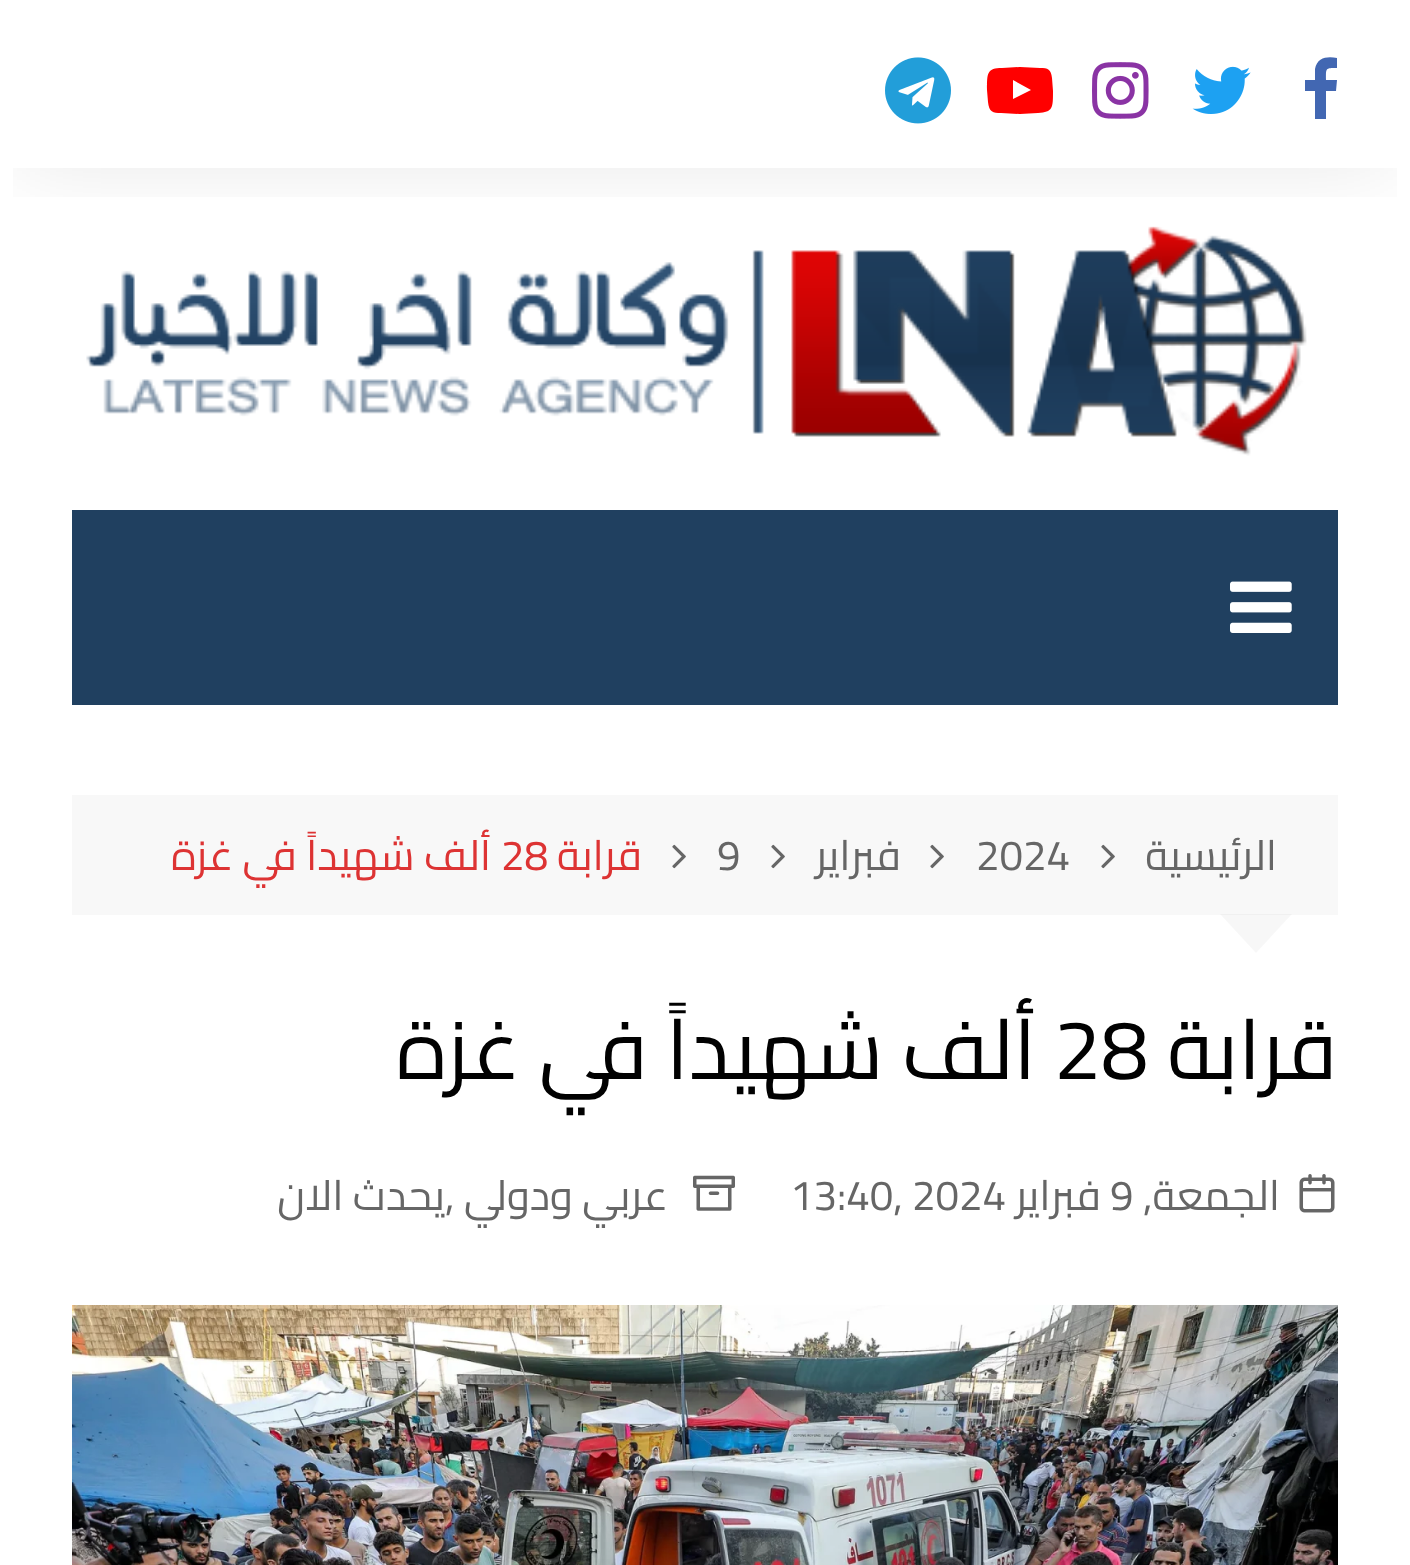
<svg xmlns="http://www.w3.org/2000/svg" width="1410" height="1565">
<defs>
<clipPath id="clip1"><rect x="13" y="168" width="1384" height="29"/></clipPath>
</defs>
<rect width="100%" height="100%" fill="#fff"/>
<g clip-path="url(#clip1)">
<rect x="15" y="21" width="1380" height="138" fill="#0000001a" filter="blur(45px)"/>
</g>
<path d="M1337 58v10c-12 0-11 0-11 12h11l-1 11h-10v28h-11v-28h-10v-11h10v-11c2-12 13-13 22-11z" fill="#4267b2"/>
<image x="1192" y="66" width="59" height="48" href="media/1.png"/>
<image x="1092" y="62" width="57" height="57" href="media/2.png"/>
<path d="M1013 99l18-9l-18-10zm7-32l20 1c8 0 11 1 12 10l1 13c0 17 0 21-15 22l-18 1l-19-1c-8 0-12-1-13-11l-1-12c0-17 0-22 15-22z" fill="#f00"/>
<image x="885" y="57" width="66" height="67" href="media/3.png"/>
<image x="86" y="226" width="1221" height="230" href="media/4.png"/>
<rect x="72" y="510" width="1266" height="195" fill="#204060"/>
<image x="1230" y="581" width="62" height="52" href="media/5.png"/>
<rect x="72" y="795" width="1266" height="120" fill="#f8f8f8"/>
<text x="1277" y="870" style="font-family:Cairo;font-size:42px;direction:rtl;fill:#666">الرئيسية</text>
<image x="1101" y="844" width="14" height="25" href="media/6.png"/>
<text x="976" y="870" style="font-family:Cairo;font-size:42px;fill:#666">2024</text>
<image x="930" y="844" width="14" height="25" href="media/6.png"/>
<text x="901" y="870" style="font-family:Cairo;font-size:42px;direction:rtl;fill:#666">فبراير</text>
<image x="771" y="844" width="14" height="25" href="media/6.png"/>
<text x="717" y="870" style="font-family:Cairo;font-size:42px;fill:#666">9</text>
<image x="672" y="844" width="14" height="25" href="media/6.png"/>
<text x="642" y="870" style="font-family:Cairo;font-size:42px;direction:rtl;fill:#d33">قرابة</text>
<text x="501" y="870" style="font-family:Cairo;font-size:42px;fill:#d33">28</text>
<text x="491" y="870" style="font-family:Cairo;font-size:42px;direction:rtl;fill:#d33">ألف شهيداً في غزة</text>
<path d="M1220 914h72l-36 39z" fill="#00000008"/>
<text x="1337" y="1079" style="font-family:Cairo;font-size:84px;direction:rtl;fill:#010101">قرابة</text>
<text x="1054" y="1079" style="font-family:Cairo;font-size:84px;fill:#010101">28</text>
<text x="1036" y="1079" style="font-family:Cairo;font-size:84px;direction:rtl;fill:#010101">ألف شهيداً في غزة</text>
<image x="1299" y="1174" width="36" height="39" href="media/7.png"/>
<text x="1280" y="1210" style="font-family:Cairo;font-size:42px;direction:rtl;fill:#666">الجمعة,</text>
<text x="1110" y="1210" style="font-family:Cairo;font-size:42px;fill:#666">9</text>
<text x="1101" y="1210" style="font-family:Cairo;font-size:42px;direction:rtl;fill:#666">فبراير</text>
<text x="790" y="1210" style="font-family:Cairo;font-size:42px;fill:#666">13:40, 2024</text>
<image x="693" y="1175" width="42" height="36" href="media/8.png"/>
<text x="668" y="1210" style="font-family:Cairo;font-size:42px;direction:rtl;fill:#666">عربي ودولي</text>
<text x="445" y="1210" style="font-family:Cairo;font-size:42px;fill:#666">,</text>
<text x="445" y="1210" style="font-family:Cairo;font-size:42px;direction:rtl;fill:#666">يحدث الان</text>
<image x="72" y="1305" width="1266" height="260" href="media/9.png"/>
</svg>
